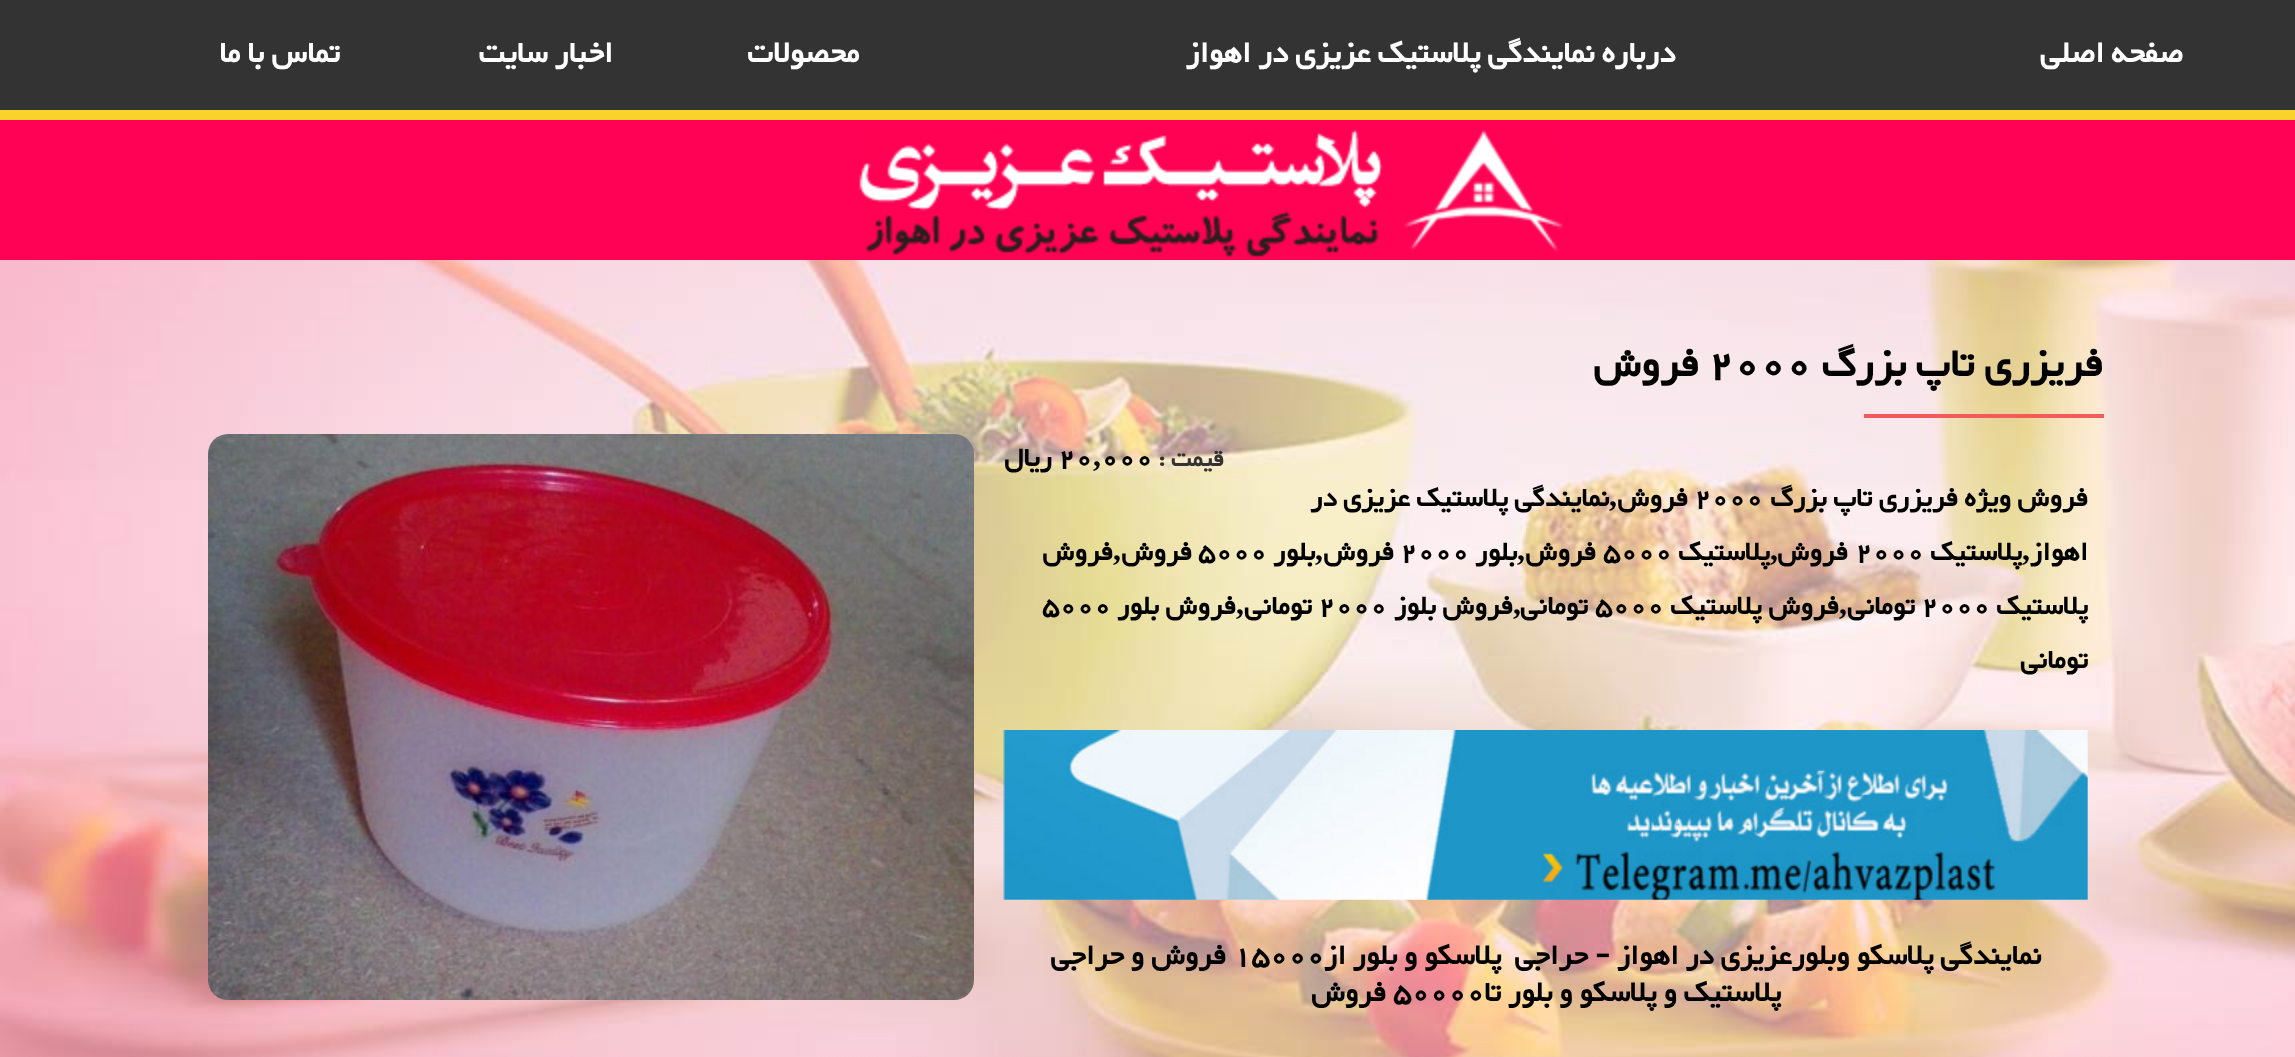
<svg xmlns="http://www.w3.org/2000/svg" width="2295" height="1057">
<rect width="100%" height="100%" fill="#fff"/>
<image x="0" y="260" width="2295" height="797" href="media/1.png"/>
<rect width="2295" height="110" fill="#333"/>
<rect y="110" width="2295" height="10" fill="#f9d22c"/>
<text x="2183" y="62" style="font-family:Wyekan;font-size:36px;font-weight:bold;direction:rtl;fill:#fff">صفحه اصلی</text>
<text x="1675" y="62" style="font-family:Wyekan;font-size:36px;font-weight:bold;direction:rtl;fill:#fff">درباره نمایندگی پلاستیک عزیزی در اهواز</text>
<text x="859" y="62" style="font-family:Wyekan;font-size:36px;font-weight:bold;direction:rtl;fill:#fff">محصولات</text>
<text x="613" y="62" style="font-family:Wyekan;font-size:36px;font-weight:bold;direction:rtl;fill:#fff">اخبار سایت</text>
<text x="340" y="62" style="font-family:Wyekan;font-size:36px;font-weight:bold;direction:rtl;fill:#fff">تماس با ما</text>
<rect y="120" width="2295" height="140" fill="#ff0255"/>
<image x="859" y="129" width="704" height="128" href="media/2.png"/>
<text x="2103" y="376" style="font-family:Wyekan;font-size:48px;font-weight:bold;direction:rtl;fill:#000">فریزری تاپ بزرگ</text>
<text x="1708" y="376" style="font-family:Wyekan;font-size:48px;font-weight:bold;fill:#000">2000</text>
<text x="1699" y="376" style="font-family:Wyekan;font-size:48px;font-weight:bold;direction:rtl;fill:#000">فروش</text>
<rect x="1864" y="414" width="240" height="4" fill="#f15b5a"/>
<text x="1224" y="466" style="font-family:Wyekan;font-size:28px;font-weight:bold;direction:rtl;fill:#333">قیمت :</text>
<text x="1101" y="466" style="font-family:Wyekan;font-size:32px;font-weight:bold;fill:#000">000</text>
<text x="1093" y="466" style="font-family:Liberation Serif;font-size:32px;font-weight:bold;fill:#000">,</text>
<text x="1058" y="466" style="font-family:Wyekan;font-size:32px;font-weight:bold;fill:#000">20</text>
<text x="1052" y="466" style="font-family:Wyekan;font-size:32px;font-weight:bold;direction:rtl;fill:#000">ریال</text>
<text x="2088" y="506" style="font-family:Wyekan;font-size:32px;font-weight:bold;direction:rtl;fill:#000">فروش ویژه</text>
<text x="1958" y="506" style="font-family:Wyekan;font-size:32px;font-weight:bold;direction:rtl;fill:#000">فریزری تاپ بزرگ</text>
<text x="1694" y="506" style="font-family:Wyekan;font-size:32px;font-weight:bold;fill:#000">2000</text>
<text x="1688" y="506" style="font-family:Wyekan;font-size:32px;font-weight:bold;direction:rtl;fill:#000">فروش</text>
<text x="1617" y="506" style="font-family:Liberation Serif;font-size:32px;font-weight:bold;direction:rtl;fill:#000">,</text>
<text x="1609" y="506" style="font-family:Wyekan;font-size:32px;font-weight:bold;direction:rtl;fill:#000">نمایندگی پلاستیک عزیزی در</text>
<text x="2088" y="560" style="font-family:Wyekan;font-size:32px;font-weight:bold;direction:rtl;fill:#000">اهواز</text>
<text x="2030" y="560" style="font-family:Liberation Serif;font-size:32px;font-weight:bold;direction:rtl;fill:#000">,</text>
<text x="2022" y="560" style="font-family:Wyekan;font-size:32px;font-weight:bold;direction:rtl;fill:#000">پلاستیک</text>
<text x="1855" y="560" style="font-family:Wyekan;font-size:32px;font-weight:bold;fill:#000">2000</text>
<text x="1848" y="560" style="font-family:Wyekan;font-size:32px;font-weight:bold;direction:rtl;fill:#000">فروش</text>
<text x="1778" y="560" style="font-family:Liberation Serif;font-size:32px;font-weight:bold;direction:rtl;fill:#000">,</text>
<text x="1770" y="560" style="font-family:Wyekan;font-size:32px;font-weight:bold;direction:rtl;fill:#000">پلاستیک</text>
<text x="1603" y="560" style="font-family:Wyekan;font-size:32px;font-weight:bold;fill:#000">5000</text>
<text x="1596" y="560" style="font-family:Wyekan;font-size:32px;font-weight:bold;direction:rtl;fill:#000">فروش</text>
<text x="1525" y="560" style="font-family:Liberation Serif;font-size:32px;font-weight:bold;direction:rtl;fill:#000">,</text>
<text x="1517" y="560" style="font-family:Wyekan;font-size:32px;font-weight:bold;direction:rtl;fill:#000">بلور</text>
<text x="1400" y="560" style="font-family:Wyekan;font-size:32px;font-weight:bold;fill:#000">2000</text>
<text x="1394" y="560" style="font-family:Wyekan;font-size:32px;font-weight:bold;direction:rtl;fill:#000">فروش</text>
<text x="1323" y="560" style="font-family:Liberation Serif;font-size:32px;font-weight:bold;direction:rtl;fill:#000">,</text>
<text x="1315" y="560" style="font-family:Wyekan;font-size:32px;font-weight:bold;direction:rtl;fill:#000">بلور</text>
<text x="1198" y="560" style="font-family:Wyekan;font-size:32px;font-weight:bold;fill:#000">5000</text>
<text x="1192" y="560" style="font-family:Wyekan;font-size:32px;font-weight:bold;direction:rtl;fill:#000">فروش</text>
<text x="1121" y="560" style="font-family:Liberation Serif;font-size:32px;font-weight:bold;direction:rtl;fill:#000">,</text>
<text x="1113" y="560" style="font-family:Wyekan;font-size:32px;font-weight:bold;direction:rtl;fill:#000">فروش</text>
<text x="2088" y="614" style="font-family:Wyekan;font-size:32px;font-weight:bold;direction:rtl;fill:#000">پلاستیک</text>
<text x="1921" y="614" style="font-family:Wyekan;font-size:32px;font-weight:bold;fill:#000">2000</text>
<text x="1915" y="614" style="font-family:Wyekan;font-size:32px;font-weight:bold;direction:rtl;fill:#000">تومانی</text>
<text x="1847" y="614" style="font-family:Liberation Serif;font-size:32px;font-weight:bold;direction:rtl;fill:#000">,</text>
<text x="1839" y="614" style="font-family:Wyekan;font-size:32px;font-weight:bold;direction:rtl;fill:#000">فروش پلاستیک</text>
<text x="1595" y="614" style="font-family:Wyekan;font-size:32px;font-weight:bold;fill:#000">5000</text>
<text x="1588" y="614" style="font-family:Wyekan;font-size:32px;font-weight:bold;direction:rtl;fill:#000">تومانی</text>
<text x="1521" y="614" style="font-family:Liberation Serif;font-size:32px;font-weight:bold;direction:rtl;fill:#000">,</text>
<text x="1513" y="614" style="font-family:Wyekan;font-size:32px;font-weight:bold;direction:rtl;fill:#000">فروش بلوز</text>
<text x="1318" y="614" style="font-family:Wyekan;font-size:32px;font-weight:bold;fill:#000">2000</text>
<text x="1312" y="614" style="font-family:Wyekan;font-size:32px;font-weight:bold;direction:rtl;fill:#000">تومانی</text>
<text x="1244" y="614" style="font-family:Liberation Serif;font-size:32px;font-weight:bold;direction:rtl;fill:#000">,</text>
<text x="1236" y="614" style="font-family:Wyekan;font-size:32px;font-weight:bold;direction:rtl;fill:#000">فروش بلور</text>
<text x="1042" y="614" style="font-family:Wyekan;font-size:32px;font-weight:bold;fill:#000">5000</text>
<text x="2088" y="668" style="font-family:Wyekan;font-size:32px;font-weight:bold;direction:rtl;fill:#000">تومانی</text>
<image x="1003" y="730" width="1085" height="170" href="media/3.png"/>
<text x="2041" y="964" style="font-family:Wyekan;font-size:34px;font-weight:bold;direction:rtl;fill:#000" xml:space="preserve">نمایندگی پلاسكو وبلورعزیزی در اهواز - حراجی  پلاسکو و بلور از</text>
<text x="1233" y="964" style="font-family:Wyekan;font-size:34px;font-weight:bold;fill:#000">15000</text>
<text x="1226" y="964" style="font-family:Wyekan;font-size:34px;font-weight:bold;direction:rtl;fill:#000">فروش و حراجی</text>
<text x="1781" y="1001" style="font-family:Wyekan;font-size:34px;font-weight:bold;direction:rtl;fill:#000">پلاستیک و پلاسکو و بلور تا</text>
<text x="1393" y="1001" style="font-family:Wyekan;font-size:34px;font-weight:bold;fill:#000">50000</text>
<text x="1386" y="1001" style="font-family:Wyekan;font-size:34px;font-weight:bold;direction:rtl;fill:#000">فروش</text>
<image x="208" y="434" width="766" height="566" href="media/4.png"/>
</svg>
